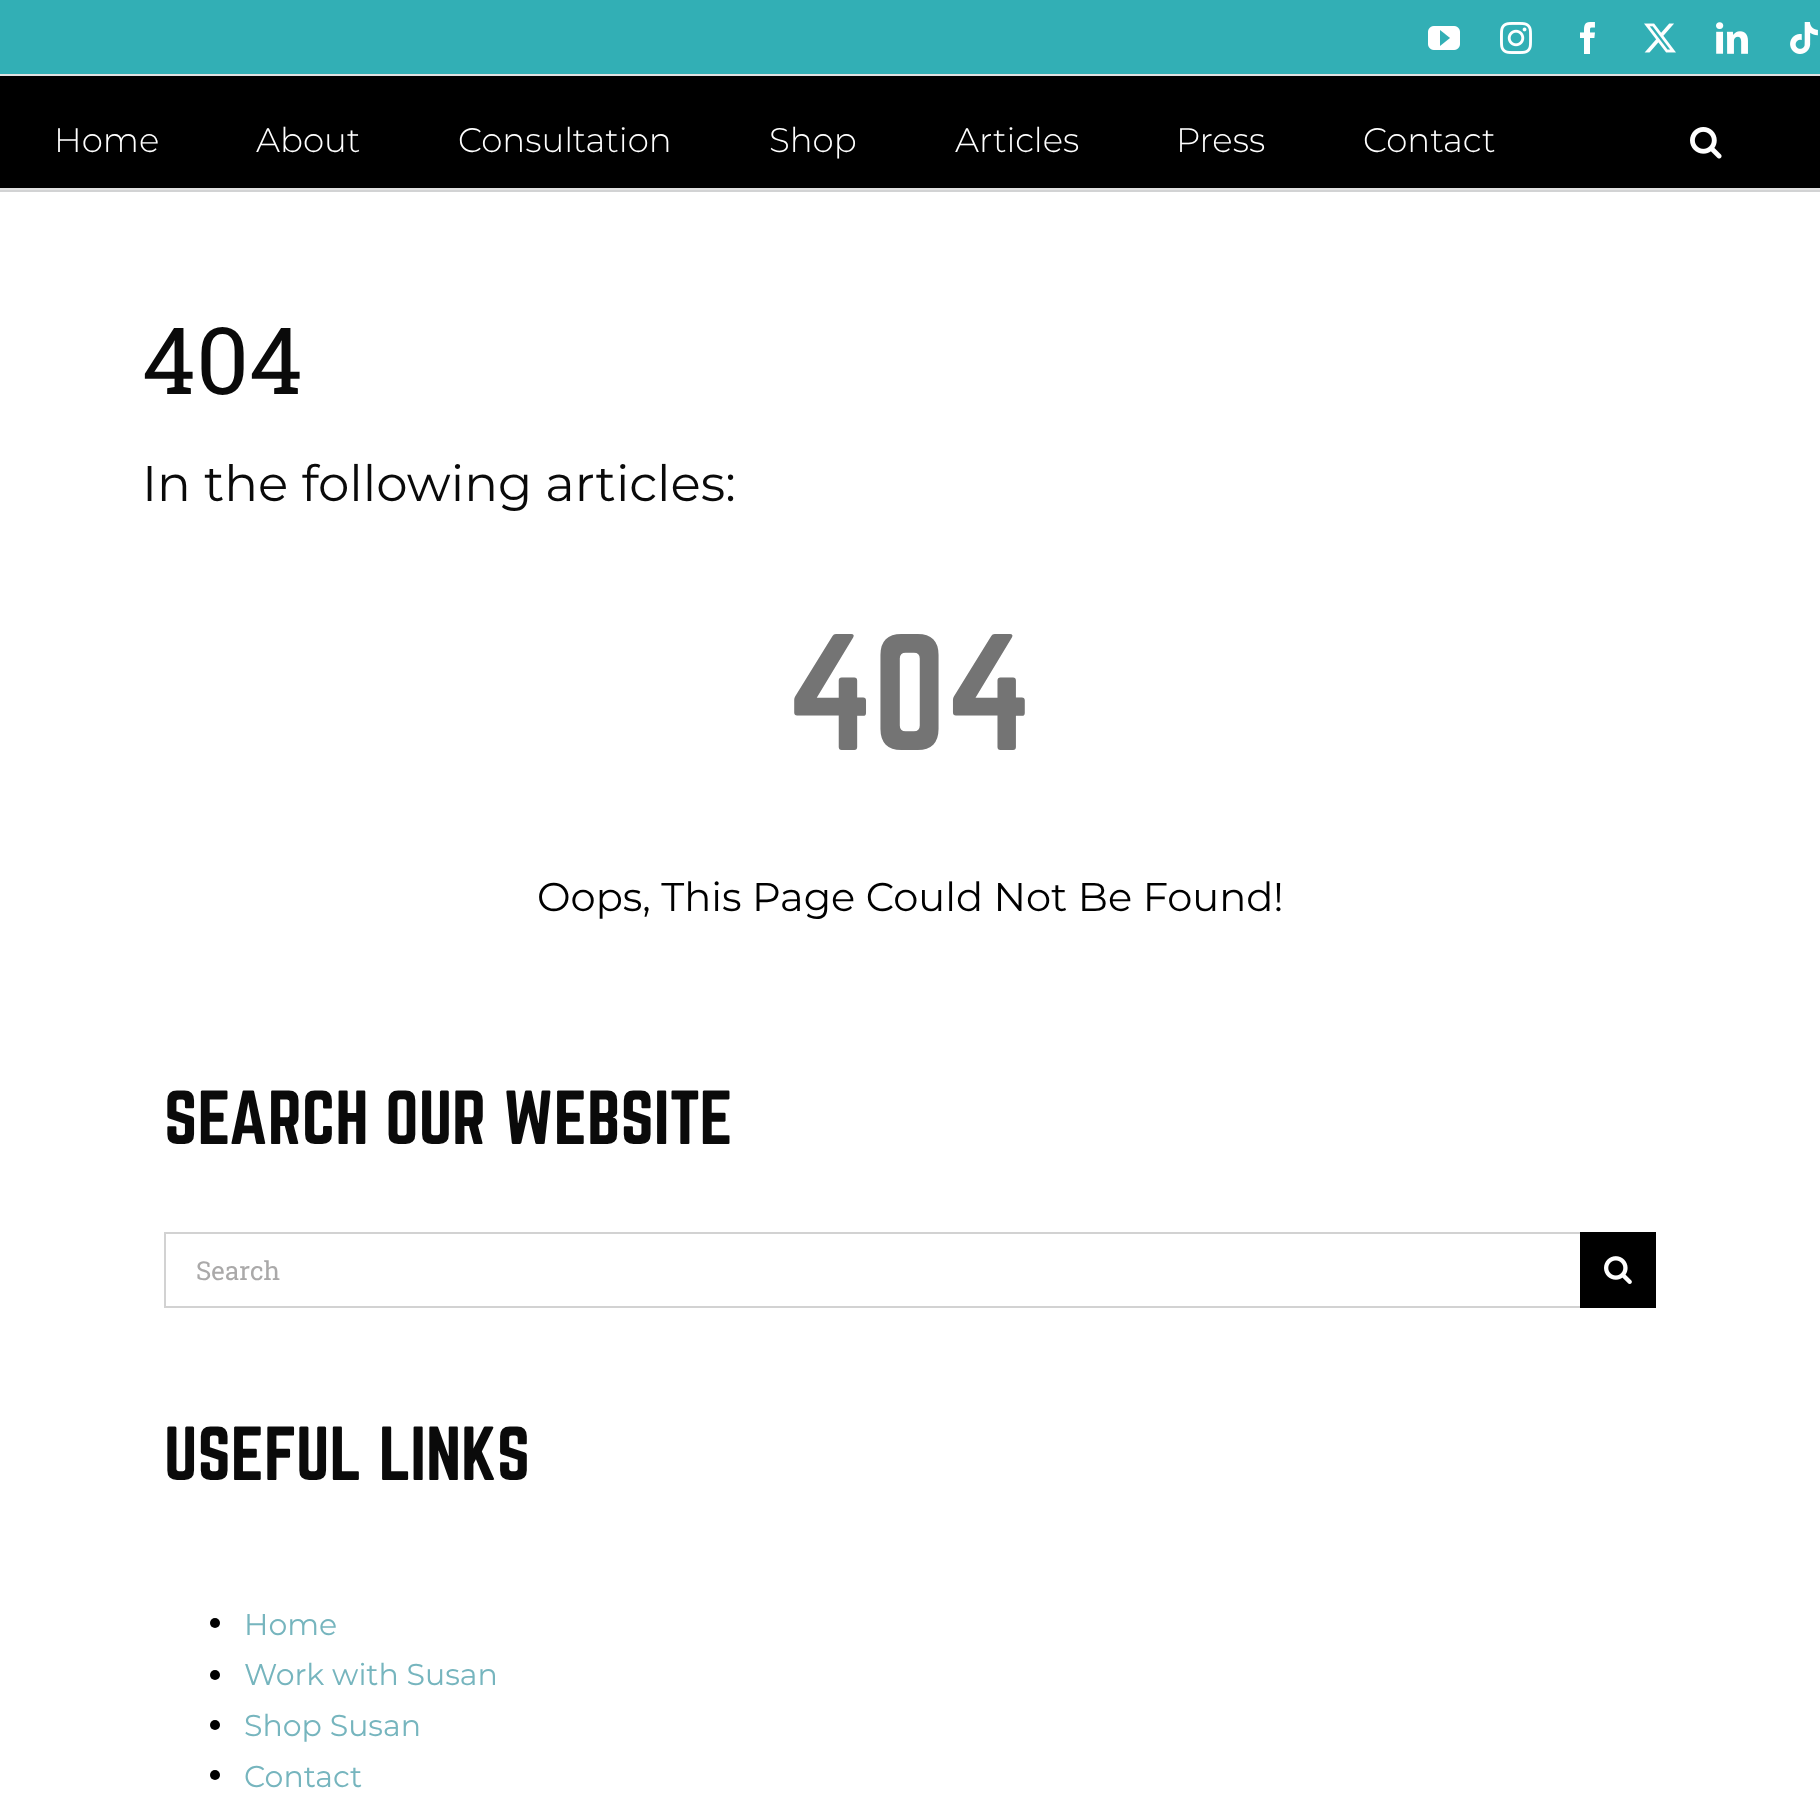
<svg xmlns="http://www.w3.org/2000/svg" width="1820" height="1816">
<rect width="100%" height="100%" fill="#fff"/>
<rect width="1820" height="74" fill="#32afb5"/>
<rect y="74" width="1820" height="2" fill="#e1e1e1"/>
<image x="1428" y="26" width="32" height="24" href="media/1.png"/>
<image x="1500" y="22" width="32" height="32" href="media/2.png"/>
<image x="1580" y="22" width="15" height="32" href="media/3.png"/>
<image x="1644" y="23" width="32" height="30" href="media/4.png"/>
<image x="1716" y="22" width="32" height="32" href="media/5.png"/>
<image x="1790" y="22" width="28" height="32" href="media/6.png"/>
<rect y="76" width="1820" height="112" fill="#000"/>
<rect y="188" width="1820" height="2" fill="#e1e1e1"/>
<text x="54" y="152" style="font-family:Montserrat;font-size:34px;font-weight:300;fill:#fff">Home</text>
<text x="256" y="152" style="font-family:Montserrat;font-size:34px;font-weight:300;fill:#fff">About</text>
<text x="458" y="152" style="font-family:Montserrat;font-size:34px;font-weight:300;fill:#fff">Consultation</text>
<text x="769" y="152" style="font-family:Montserrat;font-size:34px;font-weight:300;fill:#fff">Shop</text>
<text x="955" y="152" style="font-family:Montserrat;font-size:34px;font-weight:300;fill:#fff">Articles</text>
<text x="1176" y="152" style="font-family:Montserrat;font-size:34px;font-weight:300;fill:#fff">Press</text>
<text x="1363" y="152" style="font-family:Montserrat;font-size:34px;font-weight:300;fill:#fff">Contact</text>
<image x="1690" y="127" width="32" height="32" href="media/7.png"/>
<rect y="190" width="1820" height="2" fill="#d2d3d4"/>
<text x="142" y="394" style="font-family:Roboto Slab;font-size:93px;fill:#0a0a0a">404</text>
<text x="142" y="501" style="font-family:Montserrat;font-size:50px;fill:#0a0a0a">In the following articles:</text>
<text x="787" y="750" style="font-family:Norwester;font-size:145px;fill:#747474">404</text>
<text x="537" y="911" style="font-family:Montserrat;font-size:40px;fill:#000">Oops, This Page Could Not Be Found!</text>
<text x="164" y="1144" style="font-family:Norwester;font-size:66.75px;fill:#0a0a0a">SEARCH OUR WEBSITE</text>
<rect x="164" y="1232" width="1416" height="2" fill="#d2d2d2"/>
<rect x="164" y="1306" width="1416" height="2" fill="#d2d2d2"/>
<rect x="164" y="1232" width="2" height="76" fill="#d2d2d2"/>
<text x="196" y="1280" style="font-family:Roboto Slab;font-size:26px;fill:#aaa9a9">Search</text>
<rect x="1580" y="1232" width="76" height="76" fill="#000"/>
<image x="1604" y="1256" width="28" height="28" href="media/8.png"/>
<text x="164" y="1480" style="font-family:Norwester;font-size:66.75px;fill:#0a0a0a">USEFUL LINKS</text>
<circle cx="215" cy="1623" r="5" fill="#000"/>
<text x="244" y="1635" style="font-family:Montserrat;font-size:30px;fill:#76b5be">Home</text>
<circle cx="215" cy="1675" r="5" fill="#000"/>
<text x="244" y="1685" style="font-family:Montserrat;font-size:30px;fill:#76b5be">Work with Susan</text>
<circle cx="215" cy="1725" r="5" fill="#000"/>
<text x="244" y="1736" style="font-family:Montserrat;font-size:30px;fill:#76b5be">Shop Susan</text>
<circle cx="215" cy="1775" r="5" fill="#000"/>
<text x="244" y="1787" style="font-family:Montserrat;font-size:30px;fill:#76b5be">Contact</text>
</svg>
